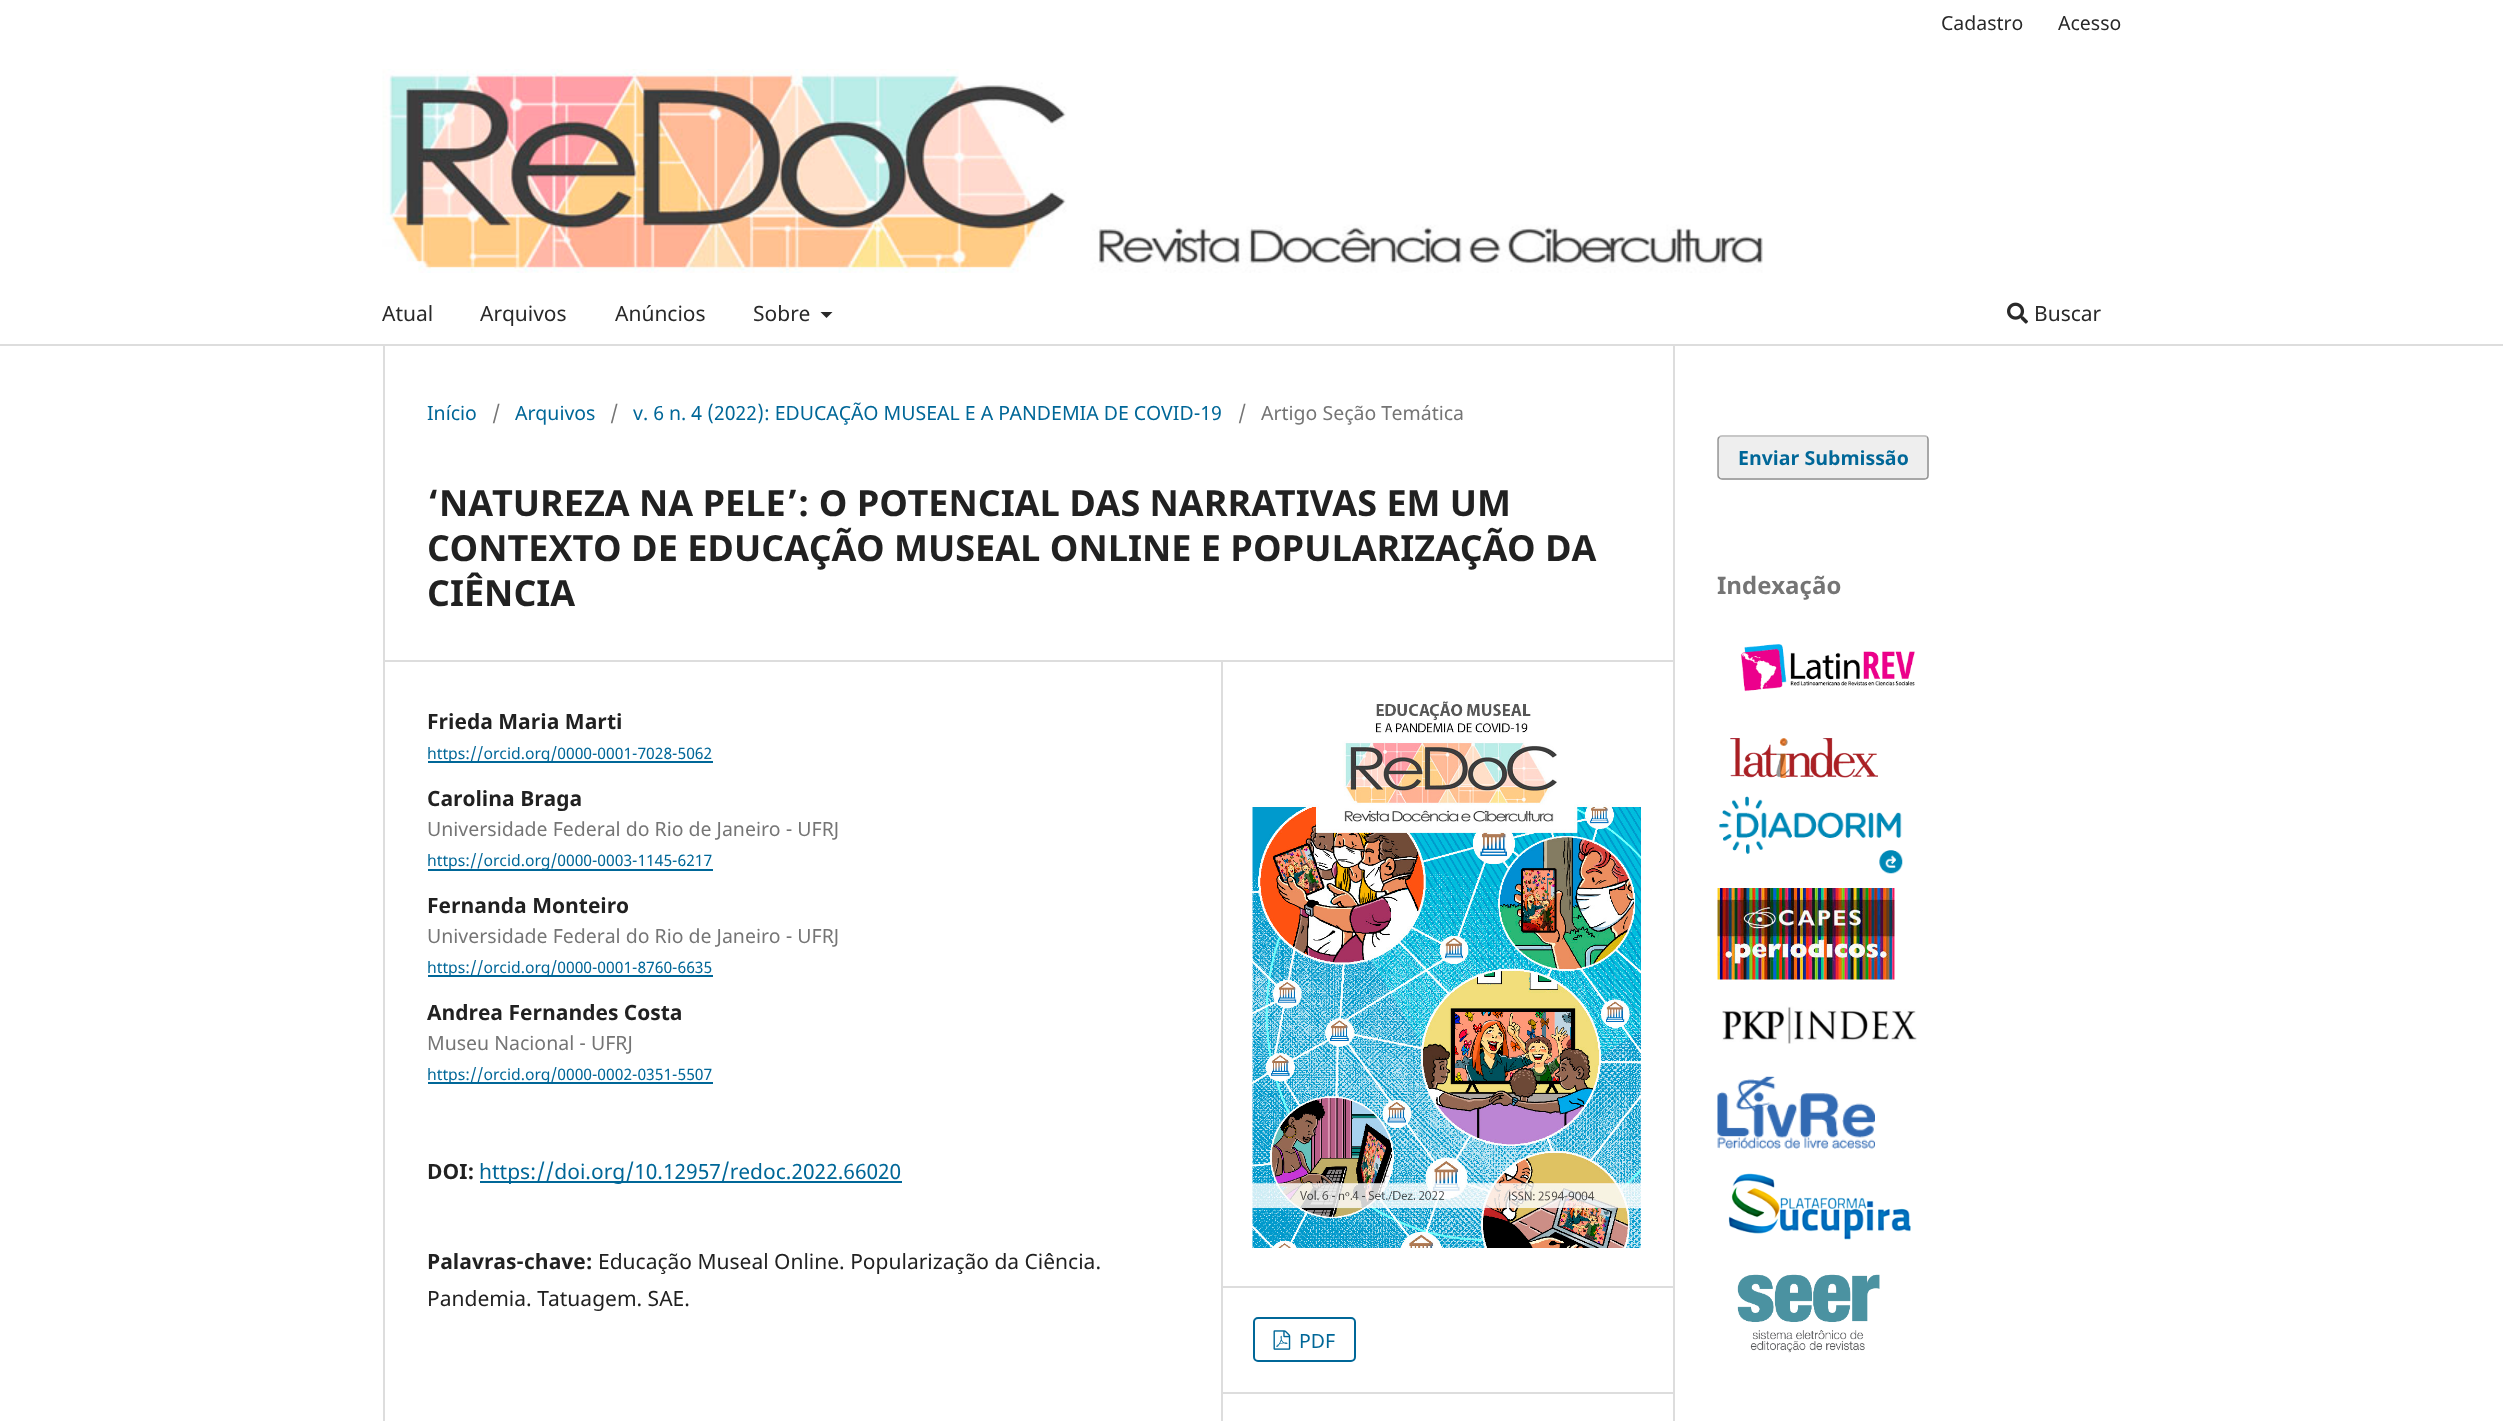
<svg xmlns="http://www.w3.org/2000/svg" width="2503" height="1421">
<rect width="100%" height="100%" fill="#fff"/>
<rect y="344" width="2503" height="2" fill="#ddd"/>
<text x="1941" y="30" style="font-family:Noto Sans;font-size:19.5px;fill:#292929">Cadastro</text>
<text x="2058" y="30" style="font-family:Noto Sans;font-size:19.5px;fill:#292929">Acesso</text>
<text x="382" y="321" style="font-family:Noto Sans;font-size:21px;fill:#292929">Atual</text>
<text x="480" y="321" style="font-family:Noto Sans;font-size:21px;fill:#292929">Arquivos</text>
<text x="615" y="321" style="font-family:Noto Sans;font-size:21px;fill:#292929">Anúncios</text>
<text x="753" y="321" style="font-family:Noto Sans;font-size:21px;fill:#292929">Sobre</text>
<path d="M820.5 312h12l-6 6z" fill="#292929"/>
<image x="2007" y="302" width="21" height="22" href="media/1.png"/>
<text x="2034" y="321" style="font-family:Noto Sans;font-size:21px;fill:#292929">Buscar</text>
<image x="382" y="69" width="1381" height="204" href="media/2.png"/>
<rect x="383" y="660" width="1290" height="2" fill="#ddd"/>
<rect x="383" y="345" width="2" height="1076" fill="#ddd"/>
<text x="427" y="420" style="font-family:Noto Sans;font-size:19.5px;fill:#006798">Início</text>
<text x="492" y="420" style="font-family:Noto Sans;font-size:19.5px;fill:#757575">/</text>
<text x="515" y="420" style="font-family:Noto Sans;font-size:19.5px;fill:#006798">Arquivos</text>
<text x="610" y="420" style="font-family:Noto Sans;font-size:19.5px;fill:#757575">/</text>
<text x="633" y="420" style="font-family:Noto Sans;font-size:19.5px;fill:#006798">v. 6 n. 4 (2022): EDUCAÇÃO MUSEAL E A PANDEMIA DE COVID-19</text>
<text x="1238" y="420" style="font-family:Noto Sans;font-size:19.5px;fill:#757575">/</text>
<text x="1261" y="420" style="font-family:Noto Sans;font-size:19.5px;fill:#757575">Artigo Seção Temática</text>
<text x="427" y="516" style="font-family:Noto Sans;font-size:36px;font-weight:bold;fill:#212121">‘NATUREZA NA PELE’: O POTENCIAL DAS NARRATIVAS EM UM</text>
<text x="427" y="561" style="font-family:Noto Sans;font-size:36px;font-weight:bold;fill:#212121">CONTEXTO DE EDUCAÇÃO MUSEAL ONLINE E POPULARIZAÇÃO DA</text>
<text x="427" y="606" style="font-family:Noto Sans;font-size:36px;font-weight:bold;fill:#212121">CIÊNCIA</text>
<rect x="1221" y="662" width="2" height="759" fill="#ddd"/>
<text x="427" y="729" style="font-family:Noto Sans;font-size:21px;font-weight:bold;fill:#212121">Frieda Maria Marti</text>
<rect x="428" y="761" width="285" height="2" fill="#006798"/>
<text x="427" y="759" style="font-family:Noto Sans;font-size:15.75px;fill:#006798">https://orcid.org/0000-0001-7028-5062</text>
<text x="427" y="806" style="font-family:Noto Sans;font-size:21px;font-weight:bold;fill:#212121">Carolina Braga</text>
<text x="427" y="836" style="font-family:Noto Sans;font-size:19.5px;fill:#757575">Universidade Federal do Rio de Janeiro - UFRJ</text>
<rect x="428" y="869" width="285" height="2" fill="#006798"/>
<text x="427" y="866" style="font-family:Noto Sans;font-size:15.75px;fill:#006798">https://orcid.org/0000-0003-1145-6217</text>
<text x="427" y="913" style="font-family:Noto Sans;font-size:21px;font-weight:bold;fill:#212121">Fernanda Monteiro</text>
<text x="427" y="943" style="font-family:Noto Sans;font-size:19.5px;fill:#757575">Universidade Federal do Rio de Janeiro - UFRJ</text>
<rect x="428" y="975" width="285" height="2" fill="#006798"/>
<text x="427" y="973" style="font-family:Noto Sans;font-size:15.75px;fill:#006798">https://orcid.org/0000-0001-8760-6635</text>
<text x="427" y="1020" style="font-family:Noto Sans;font-size:21px;font-weight:bold;fill:#212121">Andrea Fernandes Costa</text>
<text x="427" y="1050" style="font-family:Noto Sans;font-size:19.5px;fill:#757575">Museu Nacional - UFRJ</text>
<rect x="428" y="1082" width="285" height="2" fill="#006798"/>
<text x="427" y="1080" style="font-family:Noto Sans;font-size:15.75px;fill:#006798">https://orcid.org/0000-0002-0351-5507</text>
<text x="427" y="1179" style="font-family:Noto Sans;font-size:21px;font-weight:bold;fill:#212121">DOI:</text>
<rect x="480" y="1181" width="422" height="2" fill="#006798"/>
<text x="479" y="1179" style="font-family:Noto Sans;font-size:21px;fill:#006798">https://doi.org/10.12957/redoc.2022.66020</text>
<text x="427" y="1269" style="font-family:Noto Sans;font-size:21px;font-weight:bold;fill:#212121">Palavras-chave:</text>
<text x="598" y="1269" style="font-family:Noto Sans;font-size:21px;fill:#212121">Educação Museal Online. Popularização da Ciência.</text>
<text x="427" y="1306" style="font-family:Noto Sans;font-size:21px;fill:#212121">Pandemia. Tatuagem. SAE.</text>
<rect x="1223" y="1286" width="450" height="2" fill="#ddd"/>
<image x="1252" y="701" width="389" height="547" href="media/3.png"/>
<rect x="1223" y="1392" width="450" height="2" fill="#ddd"/>
<rect x="1254" y="1318" width="101" height="43" rx="4" fill="none" stroke="#006798" stroke-width="2"/>
<image x="1273" y="1330" width="18" height="20" href="media/4.png"/>
<text x="1299" y="1348" style="font-family:Noto Sans;font-size:19.5px;fill:#006798">PDF</text>
<rect x="1673" y="345" width="2" height="1076" fill="#ddd"/>
<rect x="1718" y="435" width="211" height="45" rx="5" fill="#eee"/>
<path d="M1719.5 437c.5-1 1.5-1 2.5-1h202.5c1 0 2 0 2.5 1" fill="none" stroke="#bbb" stroke-width="1.5"/>
<path d="M1927 437c1 .5 1 1.5 1 2.5v36c0 1 0 2-1 2.5c-.5 1-1.5 1-2.5 1h-202.5c-1 0-2 0-2.5-1c-1-.5-1.5-1.5-1.5-2.5v-36c0-1 .5-2 1.5-2.5" fill="none" stroke="#00000066" stroke-width="1.5"/>
<text x="1738" y="465" style="font-family:Noto Sans;font-size:19.5px;font-weight:bold;fill:#006798">Enviar Submissão</text>
<text x="1717" y="594" style="font-family:Noto Sans;font-size:24px;font-weight:bold;fill:#757575">Indexação</text>
<image x="1740" y="644" width="175" height="48" href="media/5.png"/>
<image x="1730" y="738" width="148" height="40" href="media/6.png"/>
<image x="1719" y="796" width="184" height="78" href="media/7.png"/>
<image x="1717" y="888" width="178" height="92" href="media/8.png"/>
<image x="1722" y="1006" width="195" height="38" href="media/9.png"/>
<image x="1717" y="1076" width="158" height="73" href="media/10.png"/>
<image x="1728" y="1173" width="183" height="67" href="media/11.png"/>
<image x="1737" y="1274" width="143" height="79" href="media/12.png"/>
</svg>
